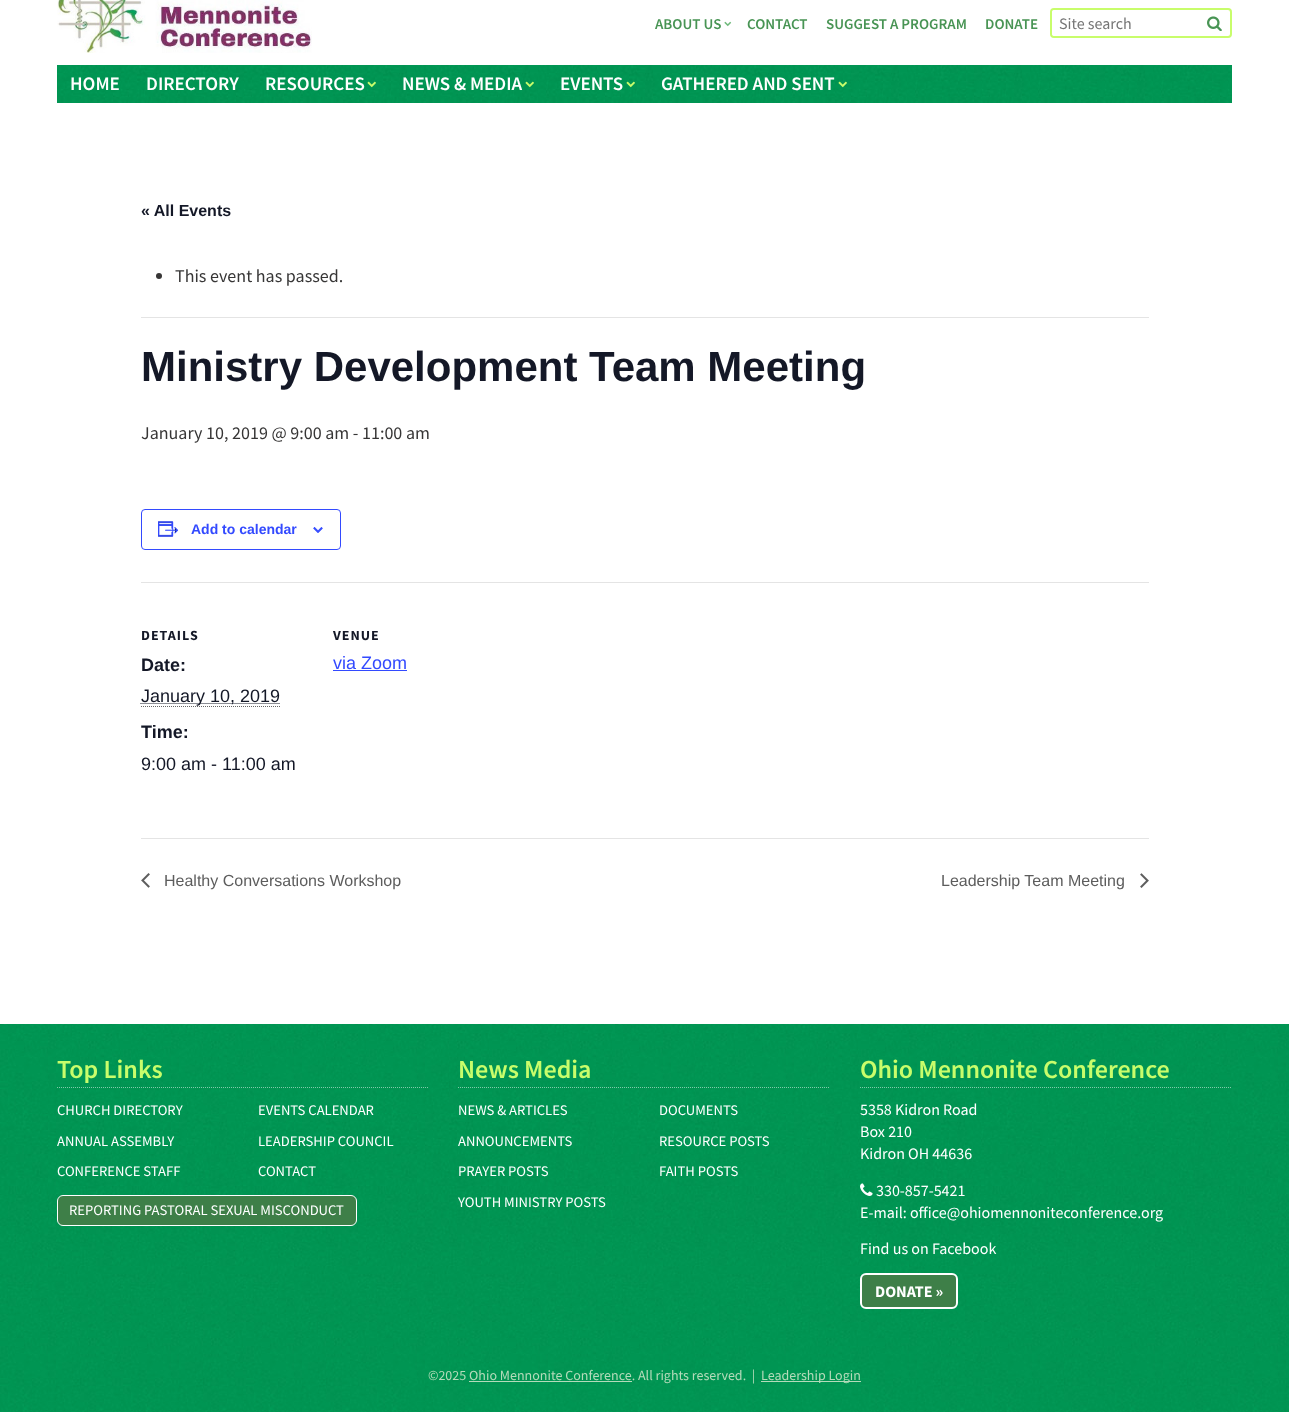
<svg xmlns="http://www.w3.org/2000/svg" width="1289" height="1412">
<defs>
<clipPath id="clip1"><rect x="141" y="477" width="1008" height="361"/></clipPath>
</defs>
<rect width="100%" height="100%" fill="#fff"/>
<image x="0" y="1024" width="1289" height="388" href="media/1.png"/>
<image x="57" y="0" width="255" height="53" href="media/2.png"/>
<text x="655" y="29" style="font-family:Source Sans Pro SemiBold;font-size:15px;font-weight:600;fill:#489454">ABOUT US</text>
<image x="724" y="21" width="8" height="6" href="media/3.png"/>
<text x="747" y="29" style="font-family:Source Sans Pro SemiBold;font-size:15px;font-weight:600;fill:#489454">CONTACT</text>
<text x="826" y="29" style="font-family:Source Sans Pro SemiBold;font-size:15px;font-weight:600;fill:#489454">SUGGEST A PROGRAM</text>
<text x="985" y="29" style="font-family:Source Sans Pro SemiBold;font-size:15px;font-weight:600;fill:#489454">DONATE</text>
<rect x="1051" y="9" width="180" height="28" rx="3" fill="none" stroke="#c8fd6b" stroke-width="2"/>
<rect x="1052" y="10" width="144" height="26" rx="3" fill="#fff"/>
<text x="1059" y="29" style="font-family:Source Sans Pro;font-size:16px;fill:#757575">Site search</text>
<image x="1207" y="16" width="15" height="15" href="media/4.png"/>
<image x="57" y="65" width="1175" height="38" href="media/5.png"/>
<text x="70" y="90" style="font-family:Source Sans Pro SemiBold;font-size:19px;font-weight:600;fill:#fff">HOME</text>
<text x="146" y="90" style="font-family:Source Sans Pro SemiBold;font-size:19px;font-weight:600;fill:#fff">DIRECTORY</text>
<text x="265" y="90" style="font-family:Source Sans Pro SemiBold;font-size:19px;font-weight:600;fill:#fff">RESOURCES</text>
<image x="367" y="81" width="9" height="7" href="media/6.png"/>
<text x="402" y="90" style="font-family:Source Sans Pro SemiBold;font-size:19px;font-weight:600;fill:#fff">NEWS &amp; MEDIA</text>
<image x="525" y="81" width="9" height="7" href="media/7.png"/>
<text x="560" y="90" style="font-family:Source Sans Pro SemiBold;font-size:19px;font-weight:600;fill:#fff">EVENTS</text>
<image x="626" y="81" width="9" height="7" href="media/8.png"/>
<text x="661" y="90" style="font-family:Source Sans Pro SemiBold;font-size:19px;font-weight:600;fill:#fff">GATHERED AND SENT</text>
<image x="838" y="81" width="9" height="7" href="media/9.png"/>
<text x="141" y="216" style="font-family:Liberation Sans;font-size:16px;font-weight:bold;fill:#141827">« All Events</text>
<rect x="141" y="317" width="1008" height="1" fill="#e4e4e4"/>
<circle cx="159" cy="276" r="3" fill="#373636"/>
<text x="175" y="282" style="font-family:Source Sans Pro;font-size:18px;fill:#373636">This event has passed.</text>
<text x="141" y="381" style="font-family:Liberation Sans;font-size:42px;font-weight:bold;fill:#141827">Ministry Development Team Meeting</text>
<text x="141" y="439" style="font-family:Source Sans Pro;font-size:18px;fill:#373636">January 10, 2019 @ 9:00 am - 11:00 am</text>
<rect x="141.5" y="509.5" width="199" height="40" rx="3.5" fill="none" stroke="#334aff"/>
<image x="158" y="521" width="21" height="16" href="media/10.png"/>
<text x="191" y="534" style="font-family:Liberation Sans;font-size:14px;font-weight:bold;fill:#334aff">Add to calendar</text>
<image x="313" y="527" width="10" height="6" href="media/11.png"/>
<rect x="141" y="582" width="1008" height="1" fill="#e4e4e4"/>
<text x="141" y="640" style="font-family:Source Sans Pro;font-size:14px;font-weight:bold;letter-spacing:1px;fill:#141827">DETAILS</text>
<text x="141" y="671" style="font-family:Liberation Sans;font-size:18px;font-weight:bold;fill:#141827">Date:</text>
<path d="M140.5 703.5h139" fill="none" stroke="#141827" stroke-dasharray="1 1"/>
<text x="141" y="702" style="font-family:Liberation Sans;font-size:18px;fill:#141827">January 10, 2019</text>
<path d="M141 706.5h139" fill="none" stroke="#666" stroke-dasharray="1 1"/>
<g clip-path="url(#clip1)">
<text x="141" y="738" style="font-family:Liberation Sans;font-size:18px;font-weight:bold;fill:#141827">Time:</text>
</g>
<text x="141" y="770" style="font-family:Liberation Sans;font-size:18px;fill:#141827">9:00 am - 11:00 am</text>
<text x="333" y="640" style="font-family:Source Sans Pro;font-size:14px;font-weight:bold;letter-spacing:1px;fill:#141827">VENUE</text>
<text x="333" y="669" style="font-family:Liberation Sans;font-size:18px;fill:#334aff">via Zoom</text>
<rect x="333" y="670" width="74" height="1" fill="#334aff"/>
<rect x="141" y="838" width="1008" height="1" fill="#e4e4e4"/>
<image x="141" y="873" width="9" height="15" href="media/12.png"/>
<text x="164" y="886" style="font-family:Liberation Sans;font-size:16px;fill:#5d5d5d">Healthy Conversations Workshop</text>
<text x="941" y="886" style="font-family:Liberation Sans;font-size:16px;fill:#5d5d5d">Leadership Team Meeting</text>
<image x="1140" y="873" width="9" height="15" href="media/13.png"/>
<path d="M57 1087.5h372" fill="none" stroke="#ffffff80" stroke-dasharray="1 1"/>
<text x="57" y="1078" style="font-family:Source Sans Pro SemiBold;font-size:26px;font-weight:600;fill:#c8fd6b">Top Links</text>
<text x="57" y="1115" style="font-family:Source Sans Pro;font-size:14.6px;fill:#fff">CHURCH DIRECTORY</text>
<text x="258" y="1115" style="font-family:Source Sans Pro;font-size:14.6px;fill:#fff">EVENTS CALENDAR</text>
<text x="57" y="1146" style="font-family:Source Sans Pro;font-size:14.6px;fill:#fff">ANNUAL ASSEMBLY</text>
<text x="258" y="1146" style="font-family:Source Sans Pro;font-size:14.6px;fill:#fff">LEADERSHIP COUNCIL</text>
<text x="57" y="1176" style="font-family:Source Sans Pro;font-size:14.6px;fill:#fff">CONFERENCE STAFF</text>
<text x="258" y="1176" style="font-family:Source Sans Pro;font-size:14.6px;fill:#fff">CONTACT</text>
<rect x="57.5" y="1195.5" width="299" height="30" rx="5.5" fill="#3e7f48" stroke="#fff"/>
<text x="69" y="1215" style="font-family:Source Sans Pro;font-size:14.6px;fill:#fff">REPORTING PASTORAL SEXUAL MISCONDUCT</text>
<path d="M458 1087.5h372" fill="none" stroke="#ffffff80" stroke-dasharray="1 1"/>
<text x="458" y="1078" style="font-family:Source Sans Pro SemiBold;font-size:26px;font-weight:600;fill:#c8fd6b">News Media</text>
<text x="458" y="1115" style="font-family:Source Sans Pro;font-size:14.6px;fill:#fff">NEWS &amp; ARTICLES</text>
<text x="659" y="1115" style="font-family:Source Sans Pro;font-size:14.6px;fill:#fff">DOCUMENTS</text>
<text x="458" y="1146" style="font-family:Source Sans Pro;font-size:14.6px;fill:#fff">ANNOUNCEMENTS</text>
<text x="659" y="1146" style="font-family:Source Sans Pro;font-size:14.6px;fill:#fff">RESOURCE POSTS</text>
<text x="458" y="1176" style="font-family:Source Sans Pro;font-size:14.6px;fill:#fff">PRAYER POSTS</text>
<text x="659" y="1176" style="font-family:Source Sans Pro;font-size:14.6px;fill:#fff">FAITH POSTS</text>
<text x="458" y="1207" style="font-family:Source Sans Pro;font-size:14.6px;fill:#fff">YOUTH MINISTRY POSTS</text>
<path d="M860 1087.5h372" fill="none" stroke="#ffffff80" stroke-dasharray="1 1"/>
<text x="860" y="1078" style="font-family:Source Sans Pro SemiBold;font-size:26px;font-weight:600;fill:#c8fd6b">Ohio Mennonite Conference</text>
<text x="860" y="1115" style="font-family:Source Sans Pro;font-size:16px;fill:#fff">5358 Kidron Road</text>
<text x="860" y="1137" style="font-family:Source Sans Pro;font-size:16px;fill:#fff">Box 210</text>
<text x="860" y="1159" style="font-family:Source Sans Pro;font-size:16px;fill:#fff">Kidron OH 44636</text>
<image x="860" y="1183" width="13" height="13" href="media/14.png"/>
<text x="876" y="1196" style="font-family:Source Sans Pro;font-size:16px;fill:#fff">330-857-5421</text>
<text x="860" y="1218" style="font-family:Source Sans Pro;font-size:16px;fill:#fff">E-mail: office@ohiomennoniteconference.org</text>
<text x="860" y="1254" style="font-family:Source Sans Pro;font-size:16px;fill:#fff">Find us on Facebook</text>
<rect x="861" y="1274" width="96" height="34" rx="5" fill="#3e7f48" stroke="#fff" stroke-width="2"/>
<text x="875" y="1297" style="font-family:Source Sans Pro;font-size:16px;font-weight:bold;fill:#fff">DONATE »</text>
<text x="428" y="1380" style="font-family:Source Sans Pro;font-size:14px;fill:#b4dbba" xml:space="preserve">©2025 Ohio Mennonite Conference. All rights reserved.  |</text>
<rect x="761" y="1381" width="100" height="1" fill="#b4dbba"/>
<text x="761" y="1380" style="font-family:Source Sans Pro;font-size:14px;fill:#b4dbba">Leadership Login</text>
<rect x="469" y="1381" width="163" height="1" fill="#b4dbba"/>
</svg>
